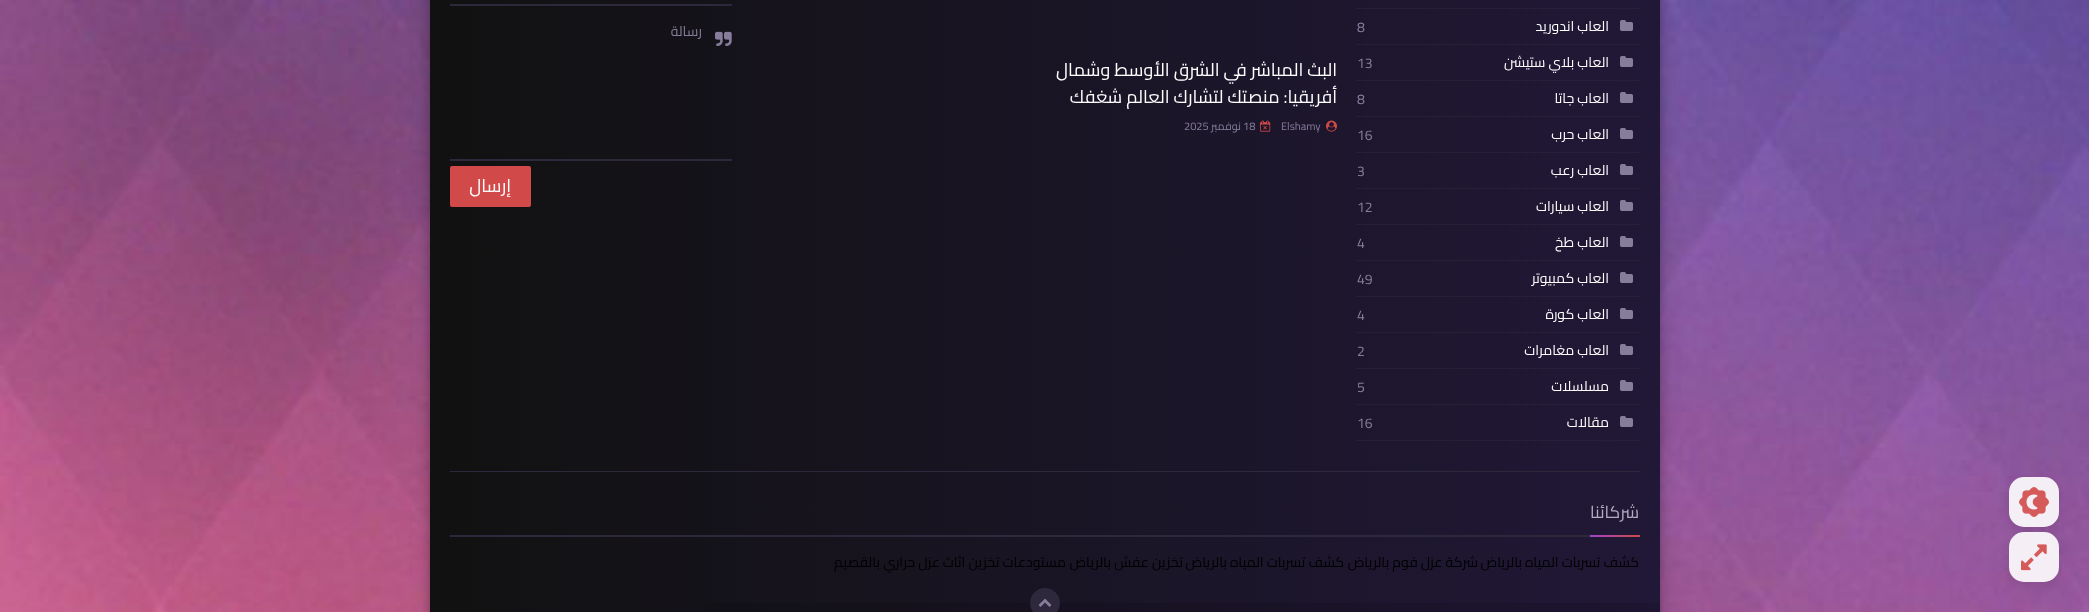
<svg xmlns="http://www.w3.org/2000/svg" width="2089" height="612">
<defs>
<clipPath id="clip1"><path d="M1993 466h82v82h-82zm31 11h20c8.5 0 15 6.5 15 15v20c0 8.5-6.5 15-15 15h-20c-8.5 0-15-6.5-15-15v-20c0-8.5 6.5-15 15-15z" clip-rule="evenodd"/></clipPath>
<clipPath id="clip2"><path d="M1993 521h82v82h-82zm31 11h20c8.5 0 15 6.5 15 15v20c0 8.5-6.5 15-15 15h-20c-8.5 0-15-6.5-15-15v-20c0-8.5 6.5-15 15-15z" clip-rule="evenodd"/></clipPath>
<linearGradient id="g1" gradientUnits="userSpaceOnUse" x1="1660" y1="132" x2="430" y2="132"><stop offset="0" stop-color="#211837"/><stop offset="1" stop-color="#111"/></linearGradient>
<linearGradient id="g2" gradientUnits="userSpaceOnUse" x1="1640" y1="536" x2="1590" y2="536"><stop offset="0" stop-color="#d24949"/><stop offset="1" stop-color="#9e44c9"/></linearGradient>
</defs>
<rect width="100%" height="100%" fill="#fff"/>
<image x="0" y="0" width="2089" height="612" href="media/1.png"/>
<g clip-path="url(#clip1)">
<rect x="2009" y="482" width="50" height="50" rx="15" fill="#00000017" filter="blur(5px)"/>
</g>
<rect x="2009" y="477" width="50" height="50" rx="15" fill="#ffffffe6"/>
<image x="2019" y="487" width="30" height="30" href="media/2.png"/>
<g clip-path="url(#clip2)">
<rect x="2009" y="537" width="50" height="50" rx="15" fill="#00000017" filter="blur(5px)"/>
</g>
<rect x="2009" y="532" width="50" height="50" rx="15" fill="#ffffffe6"/>
<image x="2021" y="544" width="26" height="27" href="media/3.png"/>
<rect x="430" y="-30" width="1230" height="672" fill="#00000030" filter="blur(10px)"/>
<rect x="430" y="-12" width="1230" height="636" fill="#00000033" filter="blur(4px)"/>
<rect x="430" width="1230" height="612" fill="url(#g1)"/>
<path d="M1357 8.5h283" fill="none" stroke="#2d283b" stroke-dasharray="1 1"/>
<path d="M1357 44.5h283" fill="none" stroke="#2d283b" stroke-dasharray="1 1"/>
<image x="1620" y="20" width="13" height="11" href="media/4.png"/>
<text x="1609" y="31" style="font-family:Cairo;font-size:14px;direction:rtl;fill:#fff">العاب اندوريد</text>
<text x="1357" y="32" style="font-family:Cairo;font-size:14px;fill:#867d9a">8</text>
<path d="M1357 80.5h283" fill="none" stroke="#2d283b" stroke-dasharray="1 1"/>
<image x="1620" y="56" width="13" height="11" href="media/4.png"/>
<text x="1609" y="67" style="font-family:Cairo;font-size:14px;direction:rtl;fill:#fff">العاب بلاي ستيشن</text>
<text x="1357" y="68" style="font-family:Cairo;font-size:14px;fill:#867d9a">13</text>
<path d="M1357 116.5h283" fill="none" stroke="#2d283b" stroke-dasharray="1 1"/>
<image x="1620" y="92" width="13" height="11" href="media/4.png"/>
<text x="1609" y="103" style="font-family:Cairo;font-size:14px;direction:rtl;fill:#fff">العاب جاتا</text>
<text x="1357" y="104" style="font-family:Cairo;font-size:14px;fill:#867d9a">8</text>
<path d="M1357 152.5h283" fill="none" stroke="#2d283b" stroke-dasharray="1 1"/>
<image x="1620" y="128" width="13" height="11" href="media/4.png"/>
<text x="1609" y="139" style="font-family:Cairo;font-size:14px;direction:rtl;fill:#fff">العاب حرب</text>
<text x="1357" y="140" style="font-family:Cairo;font-size:14px;fill:#867d9a">16</text>
<path d="M1357 188.5h283" fill="none" stroke="#2d283b" stroke-dasharray="1 1"/>
<image x="1620" y="164" width="13" height="11" href="media/4.png"/>
<text x="1609" y="175" style="font-family:Cairo;font-size:14px;direction:rtl;fill:#fff">العاب رعب</text>
<text x="1357" y="176" style="font-family:Cairo;font-size:14px;fill:#867d9a">3</text>
<path d="M1357 224.5h283" fill="none" stroke="#2d283b" stroke-dasharray="1 1"/>
<image x="1620" y="200" width="13" height="11" href="media/4.png"/>
<text x="1609" y="211" style="font-family:Cairo;font-size:14px;direction:rtl;fill:#fff">العاب سيارات</text>
<text x="1357" y="212" style="font-family:Cairo;font-size:14px;fill:#867d9a">12</text>
<path d="M1357 260.5h283" fill="none" stroke="#2d283b" stroke-dasharray="1 1"/>
<image x="1620" y="236" width="13" height="11" href="media/4.png"/>
<text x="1609" y="247" style="font-family:Cairo;font-size:14px;direction:rtl;fill:#fff">العاب طخ</text>
<text x="1357" y="248" style="font-family:Cairo;font-size:14px;fill:#867d9a">4</text>
<path d="M1357 296.5h283" fill="none" stroke="#2d283b" stroke-dasharray="1 1"/>
<image x="1620" y="272" width="13" height="11" href="media/4.png"/>
<text x="1609" y="283" style="font-family:Cairo;font-size:14px;direction:rtl;fill:#fff">العاب كمبيوتر</text>
<text x="1357" y="284" style="font-family:Cairo;font-size:14px;fill:#867d9a">49</text>
<path d="M1357 332.5h283" fill="none" stroke="#2d283b" stroke-dasharray="1 1"/>
<image x="1620" y="308" width="13" height="11" href="media/4.png"/>
<text x="1609" y="319" style="font-family:Cairo;font-size:14px;direction:rtl;fill:#fff">العاب كورة</text>
<text x="1357" y="320" style="font-family:Cairo;font-size:14px;fill:#867d9a">4</text>
<path d="M1357 368.5h283" fill="none" stroke="#2d283b" stroke-dasharray="1 1"/>
<image x="1620" y="344" width="13" height="11" href="media/4.png"/>
<text x="1609" y="355" style="font-family:Cairo;font-size:14px;direction:rtl;fill:#fff">العاب مغامرات</text>
<text x="1357" y="356" style="font-family:Cairo;font-size:14px;fill:#867d9a">2</text>
<path d="M1357 404.5h283" fill="none" stroke="#2d283b" stroke-dasharray="1 1"/>
<image x="1620" y="380" width="13" height="11" href="media/4.png"/>
<text x="1609" y="391" style="font-family:Cairo;font-size:14px;direction:rtl;fill:#fff">مسلسلات</text>
<text x="1357" y="392" style="font-family:Cairo;font-size:14px;fill:#867d9a">5</text>
<path d="M1357 440.5h283" fill="none" stroke="#2d283b" stroke-dasharray="1 1"/>
<image x="1620" y="416" width="13" height="11" href="media/4.png"/>
<text x="1609" y="427" style="font-family:Cairo;font-size:14px;direction:rtl;fill:#fff">مقالات</text>
<text x="1357" y="428" style="font-family:Cairo;font-size:14px;fill:#867d9a">16</text>
<text x="1337" y="76" style="font-family:Cairo;font-size:18px;direction:rtl;fill:#fff">البث المباشر في الشرق الأوسط وشمال</text>
<text x="1337" y="103" style="font-family:Cairo;font-size:18px;direction:rtl;fill:#fff">أفريقيا: منصتك لتشارك العالم شغفك</text>
<image x="1326" y="120" width="11" height="12" href="media/5.png"/>
<text x="1281" y="130" style="font-family:Cairo;font-size:11px;fill:#867d9a">Elshamy</text>
<image x="1260" y="120" width="11" height="12" href="media/6.png"/>
<text x="1243" y="130" style="font-family:Cairo;font-size:11px;fill:#867d9a">18</text>
<text x="1241" y="130" style="font-family:Cairo;font-size:11px;direction:rtl;fill:#867d9a">نوفمبر</text>
<text x="1184" y="130" style="font-family:Cairo;font-size:11px;fill:#867d9a">2025</text>
<rect x="450" y="4" width="282" height="2" fill="#2d283b"/>
<image x="715" y="31" width="17" height="15" href="media/7.png"/>
<text x="702" y="36" style="font-family:Cairo;font-size:14px;direction:rtl;fill:#867d9a">رسالة</text>
<rect x="450" y="159" width="282" height="2" fill="#2d283b"/>
<rect x="450" y="166" width="81" height="41" rx="2" fill="#d24949"/>
<text x="511" y="192" style="font-family:Cairo;font-size:18px;direction:rtl;fill:#fff">إرسال</text>
<rect x="450" y="471" width="1190" height="1" fill="#2d283b"/>
<rect x="450" y="535" width="1140" height="2" fill="#2d283b"/>
<text x="1639" y="518" style="font-family:Cairo;font-size:17px;direction:rtl;fill:#b3adc1">شركائنا</text>
<rect x="1590" y="535" width="50" height="2" fill="url(#g2)"/>
<text x="1639" y="567" style="font-family:Cairo;font-size:14px;direction:rtl;fill:#000">كشف تسربات المياه بالرياض</text>
<text x="1478" y="567" style="font-family:Cairo;font-size:14px;direction:rtl;fill:#000">شركة عزل فوم بالرياض</text>
<text x="1344" y="567" style="font-family:Cairo;font-size:14px;direction:rtl;fill:#000">كشف تسربات المياه بالرياض</text>
<text x="1183" y="567" style="font-family:Cairo;font-size:14px;direction:rtl;fill:#000">تخزين عفش</text>
<text x="1111" y="567" style="font-family:Cairo;font-size:14px;direction:rtl;fill:#000">بالرياض</text>
<text x="1066" y="567" style="font-family:Cairo;font-size:14px;direction:rtl;fill:#000">مستودعات تخزين اثاث</text>
<text x="940" y="567" style="font-family:Cairo;font-size:14px;direction:rtl;fill:#000">عزل حراري بالقصيم</text>
<rect x="705" y="603" width="955" height="9" fill="#0000001a"/>
<circle cx="1045" cy="603" r="15" fill="#2d283b"/>
<image x="1038" y="598" width="14" height="9" href="media/8.png"/>
</svg>
